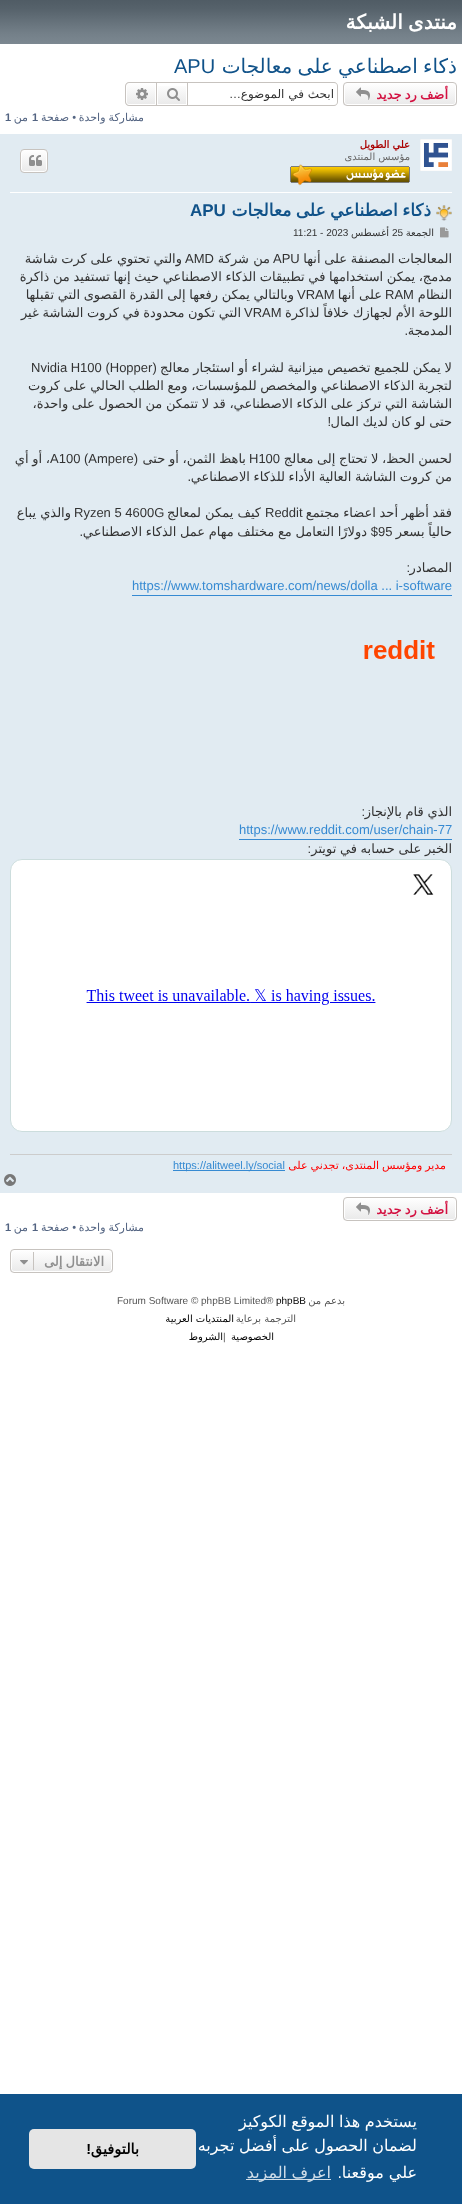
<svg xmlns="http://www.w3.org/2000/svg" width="462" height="2204">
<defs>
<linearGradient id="g1" gradientUnits="userSpaceOnUse" x1="231" y1="0" x2="231" y2="44"><stop offset="0" stop-color="#6e777f"/><stop offset="0.01" stop-color="#505c65"/><stop offset="0.2" stop-color="#56626b"/><stop offset="0.75" stop-color="#737f88"/><stop offset="1" stop-color="#7c8891"/></linearGradient>
<clipPath id="clip1"><rect x="343" y="82" width="114" height="24" rx="4"/></clipPath>
<linearGradient id="g2" gradientUnits="userSpaceOnUse" x1="400" y1="83" x2="400" y2="105"><stop offset="0" stop-color="#fff"/><stop offset="1" stop-color="#e9e9e9"/></linearGradient>
<linearGradient id="g3" gradientUnits="userSpaceOnUse" x1="172" y1="83" x2="172" y2="105"><stop offset="0" stop-color="#fff"/><stop offset="1" stop-color="#e9e9e9"/></linearGradient>
<linearGradient id="g4" gradientUnits="userSpaceOnUse" x1="141" y1="83" x2="141" y2="105"><stop offset="0" stop-color="#fff"/><stop offset="1" stop-color="#e9e9e9"/></linearGradient>
<clipPath id="clip2"><rect x="20" y="149" width="28" height="24" rx="4"/></clipPath>
<linearGradient id="g5" gradientUnits="userSpaceOnUse" x1="34" y1="150" x2="34" y2="172"><stop offset="0" stop-color="#fff"/><stop offset="1" stop-color="#e9e9e9"/></linearGradient>
<clipPath id="clip3"><rect x="343" y="1197" width="114" height="24" rx="4"/></clipPath>
<linearGradient id="g6" gradientUnits="userSpaceOnUse" x1="400" y1="1198" x2="400" y2="1220"><stop offset="0" stop-color="#fff"/><stop offset="1" stop-color="#e9e9e9"/></linearGradient>
<clipPath id="clip4"><rect x="10" y="1249" width="103" height="24" rx="4"/></clipPath>
<linearGradient id="g7" gradientUnits="userSpaceOnUse" x1="62" y1="1250" x2="62" y2="1272"><stop offset="0" stop-color="#fff"/><stop offset="1" stop-color="#e9e9e9"/></linearGradient>
</defs>
<rect width="100%" height="100%" fill="#fff"/>
<rect width="462" height="44" fill="url(#g1)"/>
<text x="457" y="29" word-spacing="-1" style="font-family:DejaVu Sans;font-size:20px;font-weight:bold;direction:rtl;fill:#fff">منتدى الشبكة</text>
<text x="457" y="73" word-spacing="-1" style="font-family:DejaVu Sans;font-size:20px;direction:rtl;fill:#105289">ذكاء اصطناعي على معالجات</text>
<text x="174" y="73" style="font-family:Liberation Sans;font-size:20px;fill:#105289">APU</text>
<g clip-path="url(#clip1)">
<rect x="343" y="83" width="114" height="22" fill="url(#g2)"/>
</g>
<rect x="344.5" y="83.5" width="111" height="21" rx="2.5" fill="none" stroke="#fff"/>
<rect x="343.5" y="82.5" width="113" height="23" rx="3.5" fill="none" stroke="#c7c3bf"/>
<text x="448" y="99" word-spacing="-1" style="font-family:DejaVu Sans;font-size:13px;font-weight:bold;direction:rtl;fill:#d31141">أضف رد جديد</text>
<image x="356" y="87" width="14" height="13" href="media/1.png"/>
<path d="M188 82h146c2 0 4 2 4 4v16c0 2-2 4-4 4h-146zm0 1h146c2 0 3 1 3 3v16c0 2-1 3-3 3h-146z" fill="#c7c3bf" fill-rule="evenodd"/>
<text x="334" y="98" style="font-family:DejaVu Sans;font-size:12px;direction:rtl;fill:#333">ابحث في الموضوع</text>
<text x="241" y="98" style="font-family:Liberation Sans;font-size:12px;direction:rtl;fill:#333">…</text>
<rect x="158" y="86" width="28" height="18" fill="url(#g3)"/>
<rect x="156.5" y="82.5" width="31" height="23" fill="none" stroke="#c7c3bf"/>
<image x="167" y="88" width="13" height="13" href="media/2.png"/>
<path d="M129 83.5h26.5v21h-26.5c-1.5 0-2.5-1-2.5-2.5v-16c0-1.5 1-2.5 2.5-2.5z" fill="url(#g4)" stroke="#fff"/>
<path d="M129 82h27v24h-27c-2 0-4-2-4-4v-16c0-2 2-4 4-4zm0 1h27v22h-27c-1.5 0-3-1.5-3-3v-16c0-1.5 1.5-3 3-3z" fill="#c7c3bf" fill-rule="evenodd"/>
<image x="136" y="88" width="12" height="12" href="media/3.png"/>
<text x="144" y="121" word-spacing="-0.5" style="font-family:DejaVu Sans;font-size:11px;direction:rtl;fill:#536482">مشاركة واحدة</text>
<text x="76" y="121" style="font-family:Liberation Sans;font-size:11px;direction:rtl;fill:#536482">•</text>
<text x="69" y="121" style="font-family:DejaVu Sans;font-size:11px;direction:rtl;fill:#536482">صفحة</text>
<text x="32" y="121" style="font-family:Liberation Sans;font-size:11px;font-weight:bold;fill:#536482">1</text>
<text x="28" y="121" style="font-family:DejaVu Sans;font-size:11px;direction:rtl;fill:#536482">من</text>
<text x="5" y="121" style="font-family:Liberation Sans;font-size:11px;font-weight:bold;fill:#536482">1</text>
<rect y="134" width="462" height="1059" fill="#e1ebf2"/>
<rect x="10" y="192" width="442" height="1" fill="#fff"/>
<image x="420" y="139" width="32" height="32" href="media/4.png"/>
<text x="410" y="148" style="font-family:DejaVu Sans;font-size:10px;font-weight:bold;direction:rtl;fill:#a00">علي الطويل</text>
<text x="410" y="160" style="font-family:DejaVu Sans;font-size:10px;direction:rtl;fill:#666">مؤسس المنتدى</text>
<image x="290" y="164" width="120" height="22" href="media/5.png"/>
<g clip-path="url(#clip2)">
<rect x="20" y="150" width="28" height="22" fill="url(#g5)"/>
</g>
<rect x="21.5" y="150.5" width="25" height="21" rx="2.5" fill="none" stroke="#fff"/>
<rect x="20.5" y="149.5" width="27" height="23" rx="3.5" fill="none" stroke="#c7c3bf"/>
<image x="29" y="155" width="13" height="11" href="media/6.png"/>
<image x="436" y="205" width="16" height="16" href="media/7.png"/>
<text x="431" y="216" word-spacing="-1" style="font-family:DejaVu Sans;font-size:17px;font-weight:bold;direction:rtl;fill:#105289">ذكاء اصطناعي على معالجات</text>
<text x="190" y="216" style="font-family:Liberation Sans;font-size:17px;font-weight:bold;fill:#105289">APU</text>
<image x="440" y="227" width="9" height="11" href="media/8.png"/>
<text x="434" y="236" style="font-family:DejaVu Sans;font-size:10px;direction:rtl;fill:#333">الجمعة</text>
<text x="392" y="236" style="font-family:Liberation Sans;font-size:10px;fill:#333">25</text>
<text x="389" y="236" style="font-family:DejaVu Sans;font-size:10px;direction:rtl;fill:#333">أغسطس</text>
<text x="293" y="236" style="font-family:Liberation Sans;font-size:10px;fill:#333">11:21 - 2023</text>
<text x="452" y="263" word-spacing="-0.5" style="font-family:DejaVu Sans;font-size:13px;direction:rtl;fill:#333">المعالجات المصنفة على أنها</text>
<text x="273" y="263" style="font-family:Liberation Sans;font-size:13px;fill:#333">APU</text>
<text x="270" y="263" style="font-family:DejaVu Sans;font-size:13px;direction:rtl;fill:#333">من شركة</text>
<text x="185" y="263" style="font-family:Liberation Sans;font-size:13px;fill:#333">AMD</text>
<text x="182" y="263" word-spacing="-0.5" style="font-family:DejaVu Sans;font-size:13px;direction:rtl;fill:#333">والتي تحتوي على كرت شاشة</text>
<text x="452" y="281" word-spacing="-0.5" style="font-family:DejaVu Sans;font-size:13px;direction:rtl;fill:#333">مدمج، يمكن استخدامها في تطبيقات الذكاء الاصطناعي حيث إنها تستفيد من ذاكرة</text>
<text x="452" y="299" style="font-family:DejaVu Sans;font-size:13px;direction:rtl;fill:#333">النظام</text>
<text x="385" y="299" style="font-family:Liberation Sans;font-size:13px;fill:#333">RAM</text>
<text x="382" y="299" style="font-family:DejaVu Sans;font-size:13px;direction:rtl;fill:#333">على أنها</text>
<text x="297" y="299" style="font-family:Liberation Sans;font-size:13px;fill:#333">VRAM</text>
<text x="294" y="299" word-spacing="-0.5" style="font-family:DejaVu Sans;font-size:13px;direction:rtl;fill:#333">وبالتالي يمكن رفعها إلى القدرة القصوى التي تقبلها</text>
<text x="452" y="317" word-spacing="-0.5" style="font-family:DejaVu Sans;font-size:13px;direction:rtl;fill:#333">اللوحة الأم لجهازك خلافاً لذاكرة</text>
<text x="244" y="317" style="font-family:Liberation Sans;font-size:13px;fill:#333">VRAM</text>
<text x="241" y="317" word-spacing="-0.5" style="font-family:DejaVu Sans;font-size:13px;direction:rtl;fill:#333">التي تكون محدودة في كروت الشاشة غير</text>
<text x="452" y="335" style="font-family:DejaVu Sans;font-size:13px;direction:rtl;fill:#333">المدمجة</text>
<text x="408" y="335" style="font-family:Liberation Sans;font-size:13px;direction:rtl;fill:#333">.</text>
<text x="452" y="372" word-spacing="-0.5" style="font-family:DejaVu Sans;font-size:13px;direction:rtl;fill:#333">لا يمكن للجميع تخصيص ميزانية لشراء أو استئجار معالج</text>
<text x="31" y="372" style="font-family:Liberation Sans;font-size:13px;fill:#333">Nvidia H100 (Hopper)</text>
<text x="452" y="390" word-spacing="-0.5" style="font-family:DejaVu Sans;font-size:13px;direction:rtl;fill:#333">لتجربة الذكاء الاصطناعي والمخصص للمؤسسات، ومع الطلب الحالي على كروت</text>
<text x="452" y="408" word-spacing="-0.5" style="font-family:DejaVu Sans;font-size:13px;direction:rtl;fill:#333">الشاشة التي تركز على الذكاء الاصطناعي، قد لا تتمكن من الحصول على واحدة،</text>
<text x="452" y="426" word-spacing="-0.5" style="font-family:DejaVu Sans;font-size:13px;direction:rtl;fill:#333">حتى لو كان لديك المال</text>
<text x="331" y="426" style="font-family:Liberation Sans;font-size:13px;direction:rtl;fill:#333">!</text>
<text x="452" y="463" word-spacing="-0.5" style="font-family:DejaVu Sans;font-size:13px;direction:rtl;fill:#333">لحسن الحظ، لا تحتاج إلى معالج</text>
<text x="249" y="463" style="font-family:Liberation Sans;font-size:13px;fill:#333">H100</text>
<text x="246" y="463" word-spacing="-0.5" style="font-family:DejaVu Sans;font-size:13px;direction:rtl;fill:#333">باهظ الثمن، أو حتى</text>
<text x="50" y="463" style="font-family:Liberation Sans;font-size:13px;fill:#333">A100 (Ampere)</text>
<text x="50" y="463" word-spacing="-0.5" style="font-family:DejaVu Sans;font-size:13px;direction:rtl;fill:#333">، أو أي</text>
<text x="452" y="481" word-spacing="-0.5" style="font-family:DejaVu Sans;font-size:13px;direction:rtl;fill:#333">من كروت الشاشة العالية الأداء للذكاء الاصطناعي</text>
<text x="191" y="481" style="font-family:Liberation Sans;font-size:13px;direction:rtl;fill:#333">.</text>
<text x="452" y="517" word-spacing="-0.5" style="font-family:DejaVu Sans;font-size:13px;direction:rtl;fill:#333">فقد أظهر أحد اعضاء مجتمع</text>
<text x="265" y="517" style="font-family:Liberation Sans;font-size:13px;fill:#333">Reddit</text>
<text x="261" y="517" style="font-family:DejaVu Sans;font-size:13px;direction:rtl;fill:#333">كيف يمكن لمعالج</text>
<text x="74" y="517" style="font-family:Liberation Sans;font-size:13px;fill:#333">Ryzen 5 4600G</text>
<text x="71" y="517" style="font-family:DejaVu Sans;font-size:13px;direction:rtl;fill:#333">والذي يباع</text>
<text x="452" y="536" word-spacing="-0.5" style="font-family:DejaVu Sans;font-size:13px;direction:rtl;fill:#333">حالياً بسعر</text>
<text x="378" y="536" style="font-family:Liberation Sans;font-size:13px;fill:#333">95</text>
<text x="378" y="536" style="font-family:Liberation Sans;font-size:13px;direction:rtl;fill:#333">$</text>
<text x="367" y="536" word-spacing="-0.5" style="font-family:DejaVu Sans;font-size:13px;direction:rtl;fill:#333">دولارًا التعامل مع مختلف مهام عمل الذكاء الاصطناعي</text>
<text x="83" y="536" style="font-family:Liberation Sans;font-size:13px;direction:rtl;fill:#333">.</text>
<text x="452" y="572" style="font-family:DejaVu Sans;font-size:13px;direction:rtl;fill:#333">المصادر</text>
<text x="410" y="572" style="font-family:Liberation Sans;font-size:13px;direction:rtl;fill:#333">:</text>
<rect x="132" y="595" width="320" height="1" fill="#368ad2"/>
<text x="132" y="590" style="font-family:Liberation Sans;font-size:13px;fill:#368ad2">https://www.tomshardware.com/news/dolla ... i-software</text>
<image x="364" y="640" width="71" height="19" href="media/9.png"/>
<text x="452" y="816" word-spacing="-0.5" style="font-family:DejaVu Sans;font-size:13px;direction:rtl;fill:#333">الذي قام بالإنجاز</text>
<text x="365" y="816" style="font-family:Liberation Sans;font-size:13px;direction:rtl;fill:#333">:</text>
<rect x="239" y="839" width="213" height="1" fill="#368ad2"/>
<text x="239" y="834" style="font-family:Liberation Sans;font-size:13px;fill:#368ad2">https://www.reddit.com/user/chain-77</text>
<text x="311" y="853" style="font-family:Liberation Sans;font-size:13px;direction:rtl;fill:#333">:</text>
<text x="452" y="853" word-spacing="-0.5" style="font-family:DejaVu Sans;font-size:13px;direction:rtl;fill:#333">الخبر على حسابه في تويتر</text>
<image x="10" y="859" width="442" height="273" href="media/10.png"/>
<rect x="10" y="1154" width="442" height="1" fill="#ccc"/>
<text x="446" y="1169" word-spacing="-0.5" style="font-family:DejaVu Sans;font-size:11px;direction:rtl;fill:#f00">مدير ومؤسس المنتدى، تجدني على</text>
<rect x="173" y="1170" width="112" height="1" fill="#368ad2"/>
<text x="173" y="1169" style="font-family:Liberation Sans;font-size:11px;fill:#368ad2">https://alitweel.ly/social</text>
<image x="4" y="1174" width="12" height="12" href="media/11.png"/>
<g clip-path="url(#clip3)">
<rect x="343" y="1198" width="114" height="22" fill="url(#g6)"/>
</g>
<rect x="344.5" y="1198.5" width="111" height="21" rx="2.5" fill="none" stroke="#fff"/>
<rect x="343.5" y="1197.5" width="113" height="23" rx="3.5" fill="none" stroke="#c7c3bf"/>
<text x="448" y="1214" word-spacing="-1" style="font-family:DejaVu Sans;font-size:13px;font-weight:bold;direction:rtl;fill:#d31141">أضف رد جديد</text>
<image x="356" y="1202" width="14" height="13" href="media/1.png"/>
<text x="144" y="1231" word-spacing="-0.5" style="font-family:DejaVu Sans;font-size:11px;direction:rtl;fill:#536482">مشاركة واحدة</text>
<text x="76" y="1231" style="font-family:Liberation Sans;font-size:11px;direction:rtl;fill:#536482">•</text>
<text x="69" y="1231" style="font-family:DejaVu Sans;font-size:11px;direction:rtl;fill:#536482">صفحة</text>
<text x="32" y="1231" style="font-family:Liberation Sans;font-size:11px;font-weight:bold;fill:#536482">1</text>
<text x="28" y="1231" style="font-family:DejaVu Sans;font-size:11px;direction:rtl;fill:#536482">من</text>
<text x="5" y="1231" style="font-family:Liberation Sans;font-size:11px;font-weight:bold;fill:#536482">1</text>
<g clip-path="url(#clip4)">
<rect x="10" y="1250" width="103" height="22" fill="url(#g7)"/>
</g>
<rect x="11.5" y="1250.5" width="100" height="21" rx="2.5" fill="none" stroke="#fff"/>
<rect x="10.5" y="1249.5" width="102" height="23" rx="3.5" fill="none" stroke="#c7c3bf"/>
<text x="104" y="1266" word-spacing="-1" style="font-family:DejaVu Sans;font-size:13px;font-weight:bold;direction:rtl;fill:#8f8f8f">الانتقال إلى</text>
<rect x="33" y="1252" width="1" height="18" fill="#c7c3bf"/>
<image x="20" y="1260" width="8" height="5" href="media/12.png"/>
<text x="345" y="1304" style="font-family:DejaVu Sans;font-size:10px;direction:rtl;fill:#555">بدعم من</text>
<text x="276" y="1304" style="font-family:Liberation Sans;font-size:10px;fill:#000">phpBB</text>
<text x="117" y="1304" style="font-family:Liberation Sans;font-size:10px;fill:#555">Forum Software © phpBB Limited®</text>
<text x="296" y="1322" style="font-family:DejaVu Sans;font-size:10px;direction:rtl;fill:#555">الترجمة برعاية</text>
<text x="234" y="1322" style="font-family:DejaVu Sans;font-size:10px;direction:rtl;fill:#000">المنتديات العربية</text>
<text x="274" y="1340" style="font-family:DejaVu Sans;font-size:10px;direction:rtl;fill:#000">الخصوصية</text>
<text x="223" y="1340" style="font-family:Liberation Sans;font-size:10px;fill:#555">|</text>
<text x="223" y="1340" style="font-family:DejaVu Sans;font-size:10px;direction:rtl;fill:#000">الشروط</text>
<rect y="2094" width="462" height="110" fill="#0f538a"/>
<text x="417" y="2127" word-spacing="-0.5" style="font-family:DejaVu Sans;font-size:16px;direction:rtl;fill:#fff">يستخدم هذا الموقع الكوكيز</text>
<text x="417" y="2151" word-spacing="-0.5" style="font-family:DejaVu Sans;font-size:16px;direction:rtl;fill:#fff">لضمان الحصول على أفضل تجربه</text>
<text x="417" y="2178" style="font-family:DejaVu Sans;font-size:16px;direction:rtl;fill:#fff">علي موقعنا</text>
<text x="342" y="2178" style="font-family:Liberation Sans;font-size:16px;direction:rtl;fill:#fff">.</text>
<rect x="246" y="2179" width="85" height="1" fill="#cfdde8"/>
<text x="331" y="2178" word-spacing="-0.5" style="font-family:DejaVu Sans;font-size:16px;direction:rtl;fill:#cfdde8">اعرف المزيد</text>
<rect x="29" y="2129" width="167" height="40" rx="5" fill="#e5e5e5"/>
<text x="139" y="2154" style="font-family:DejaVu Sans;font-size:14.5px;font-weight:bold;direction:rtl;fill:#000">بالتوفيق</text>
<text x="91" y="2154" style="font-family:Liberation Sans;font-size:14.5px;font-weight:bold;direction:rtl;fill:#000">!</text>
</svg>
